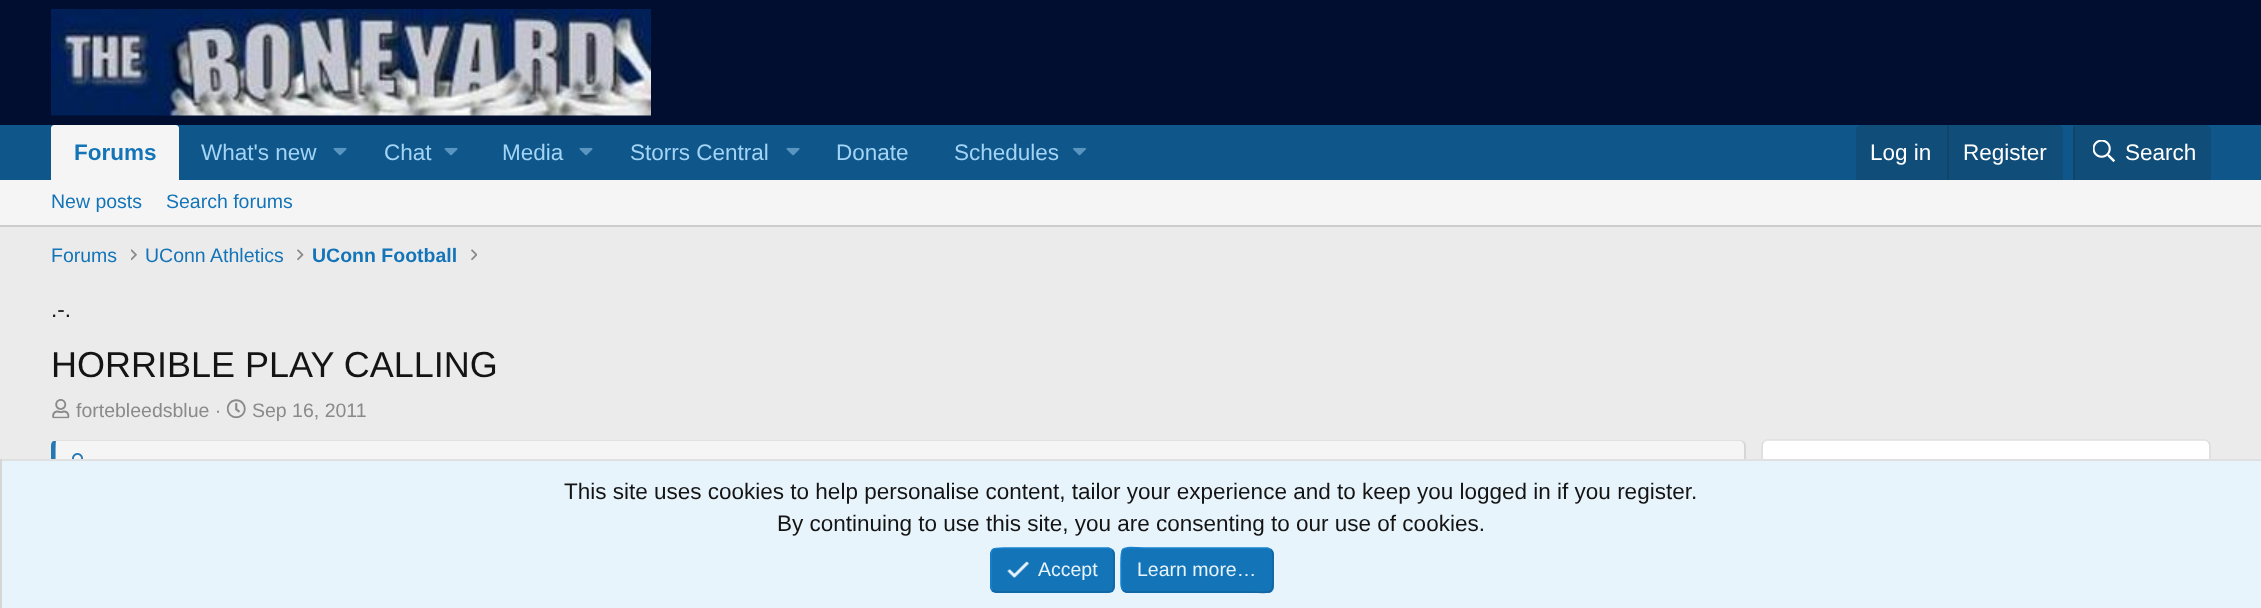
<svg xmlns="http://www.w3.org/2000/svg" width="2261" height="608">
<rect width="100%" height="100%" fill="#ebebeb"/>
<rect width="2261" height="125" fill="#010e2f"/>
<image x="51" y="9" width="600" height="107" href="media/1.png"/>
<rect y="125" width="2261" height="55" fill="#0f578a"/>
<path d="M54 125h122c1.5 0 3 1.5 3 3v52h-128v-52c0-1.5 1.5-3 3-3z" fill="#f5f5f5"/>
<text x="74" y="160" style="font-family:Liberation Sans;font-size:22.5px;font-weight:bold;fill:#1474b8">Forums</text>
<text x="201" y="160" style="font-family:Liberation Sans;font-size:22.5px;fill:#a3d4f5">What's new</text>
<image x="333" y="147" width="14" height="9" href="media/2.png"/>
<text x="384" y="160" style="font-family:Liberation Sans;font-size:22.5px;fill:#a3d4f5">Chat</text>
<image x="444" y="147" width="14" height="9" href="media/2.png"/>
<text x="502" y="160" style="font-family:Liberation Sans;font-size:22.5px;fill:#a3d4f5">Media</text>
<image x="579" y="147" width="14" height="9" href="media/2.png"/>
<text x="630" y="160" style="font-family:Liberation Sans;font-size:22.5px;fill:#a3d4f5">Storrs Central</text>
<image x="786" y="147" width="14" height="9" href="media/2.png"/>
<text x="836" y="160" style="font-family:Liberation Sans;font-size:22.5px;fill:#a3d4f5">Donate</text>
<text x="954" y="160" style="font-family:Liberation Sans;font-size:22.5px;fill:#a3d4f5">Schedules</text>
<image x="1073" y="147" width="13" height="9" href="media/3.png"/>
<path d="M1862 125h195c3.5 0 6 2.5 6 6v49h-207v-49c0-3.5 2.5-6 6-6z" fill="#104d78"/>
<text x="1870" y="160" style="font-family:Liberation Sans;font-size:22.5px;fill:#fff">Log in</text>
<rect x="1947" y="125" width="2" height="55" fill="#114469"/>
<text x="1963" y="160" style="font-family:Liberation Sans;font-size:22.5px;fill:#fff">Register</text>
<path d="M2079 125h126c3.5 0 6 2.5 6 6v49h-138v-49c0-3.5 2.5-6 6-6z" fill="#104d78"/>
<rect x="2073" y="125" width="2" height="55" fill="#14141426"/>
<image x="2093" y="140" width="22" height="22" href="media/4.png"/>
<text x="2125" y="160" style="font-family:Liberation Sans;font-size:22.5px;fill:#fff">Search</text>
<rect y="180" width="2261" height="45" fill="#f5f5f5"/>
<rect y="225" width="2261" height="2" fill="#ccc"/>
<text x="51" y="208" style="font-family:Liberation Sans;font-size:19.5px;fill:#1474b8">New posts</text>
<text x="166" y="208" style="font-family:Liberation Sans;font-size:19.5px;fill:#1474b8">Search forums</text>
<text x="51" y="262" style="font-family:Liberation Sans;font-size:19.5px;fill:#1474b8">Forums</text>
<image x="131" y="249" width="6" height="12" href="media/5.png"/>
<text x="145" y="262" style="font-family:Liberation Sans;font-size:19.5px;fill:#1474b8">UConn Athletics</text>
<image x="297" y="249" width="7" height="12" href="media/6.png"/>
<text x="312" y="262" style="font-family:Liberation Sans;font-size:19.5px;font-weight:bold;fill:#1474b8">UConn Football</text>
<image x="471" y="249" width="6" height="12" href="media/7.png"/>
<text x="51" y="317" style="font-family:Liberation Sans;font-size:22.5px;fill:#141414">.-.</text>
<text x="51" y="377" style="font-family:Liberation Sans;font-size:36px;fill:#141414">HORRIBLE PLAY CALLING</text>
<image x="52" y="399" width="18" height="20" href="media/8.png"/>
<text x="76" y="417" style="font-family:Liberation Sans;font-size:19.5px;fill:#8a8a8a">fortebleedsblue ·</text>
<image x="226" y="399" width="20" height="20" href="media/9.png"/>
<text x="252" y="417" style="font-family:Liberation Sans;font-size:19.5px;fill:#8a8a8a">Sep 16, 2011</text>
<path d="M57 441h1683c2 0 4 2 4 5v36c0 2-2 4-4 4h-1683c-1 0-1-2-1-4v-36c0-3 0-5 1-5z" fill="#f5f5f5"/>
<path d="M57 440l-3 1h2h1684c1 0 2 1 3 2l1-2c-1-1-3-1-4-1z" fill="#e0e0e0"/>
<path d="M1744 441c1 1 2 3 2 5v36c0 1-1 3-2 4l-1-2l1-2v-36c0-1 0-3-1-3z" fill="#d6d6d6"/>
<path d="M51 446v36c0 2 1 4 2 5l3-1c0-2-1-43 0-45h-2c-2 0-3 2-3 5z" fill="#2577b1"/>
<image x="72" y="453" width="11" height="6" href="media/10.png"/>
<rect x="1761" y="440" width="450" height="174" rx="6" fill="#fff"/>
<path d="M1763.5 442c1-1 2-2 3.5-2h438c1.5 0 2.5 1 3.5 2" fill="none" stroke="#e0e0e0" stroke-width="1.5"/>
<path d="M2208.5 442c1 1 1.5 2 1.5 3.5v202.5c0 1.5-.5 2.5-1.5 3.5" fill="none" stroke="#d6d6d6" stroke-width="1.5"/>
<path d="M1763.5 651.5c-1-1-1.5-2-1.5-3.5v-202.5c0-1.5 .5-2.5 1.5-3.5" fill="none" stroke="#d6d6d6" stroke-width="1.5"/>
<rect x="2" y="461" width="2259" height="147" fill="#e8f4fc"/>
<rect y="459" width="2261" height="2" fill="#e0e0e0"/>
<rect y="459" width="2" height="149" fill="#d6d6d6"/>
<text x="564" y="499" style="font-family:Liberation Sans;font-size:22.5px;fill:#141414">This site uses cookies to help personalise content, tailor your experience and to keep you logged in if you register.</text>
<text x="777" y="531" style="font-family:Liberation Sans;font-size:22.5px;fill:#141414">By continuing to use this site, you are consenting to our use of cookies.</text>
<rect x="990" y="548" width="125" height="45" rx="6" fill="#1474b8"/>
<path d="M1112 550c2.5 2 2 6 2 9v11c0 25.5 3 22-24 22h-94c-1.5-.5-2.5-1-3.5-2" fill="none" stroke="#1265a1" stroke-width="1.5"/>
<path d="M992.5 590c-2.5-2-1.5-6-1.5-9v-11c0-25.5-3.5-22 24-22h93.5c1.5 .5 2.5 1 3.5 2" fill="none" stroke="#1782cf" stroke-width="1.5"/>
<image x="1007" y="561" width="22" height="17" href="media/11.png"/>
<text x="1038" y="576" style="font-family:Liberation Sans;font-size:19.5px;fill:#e8f4fc">Accept</text>
<rect x="1121" y="548" width="153" height="45" rx="6" fill="#1474b8"/>
<path d="M1271 550c2.5 2 2 6 2 9v11c0 27.5 2.5 22-29 22h-117.5c-1.5-.5-2.5-1-3.5-2" fill="none" stroke="#1265a1" stroke-width="1.5"/>
<path d="M1123 590c-2.5-2-2-6-2-9v-11c0-27.5-2.5-22 29-22h117.5c1.5 .5 2.5 1 3.5 2" fill="none" stroke="#1782cf" stroke-width="1.5"/>
<text x="1137" y="576" style="font-family:Liberation Sans;font-size:19.5px;fill:#e8f4fc">Learn more…</text>
</svg>
